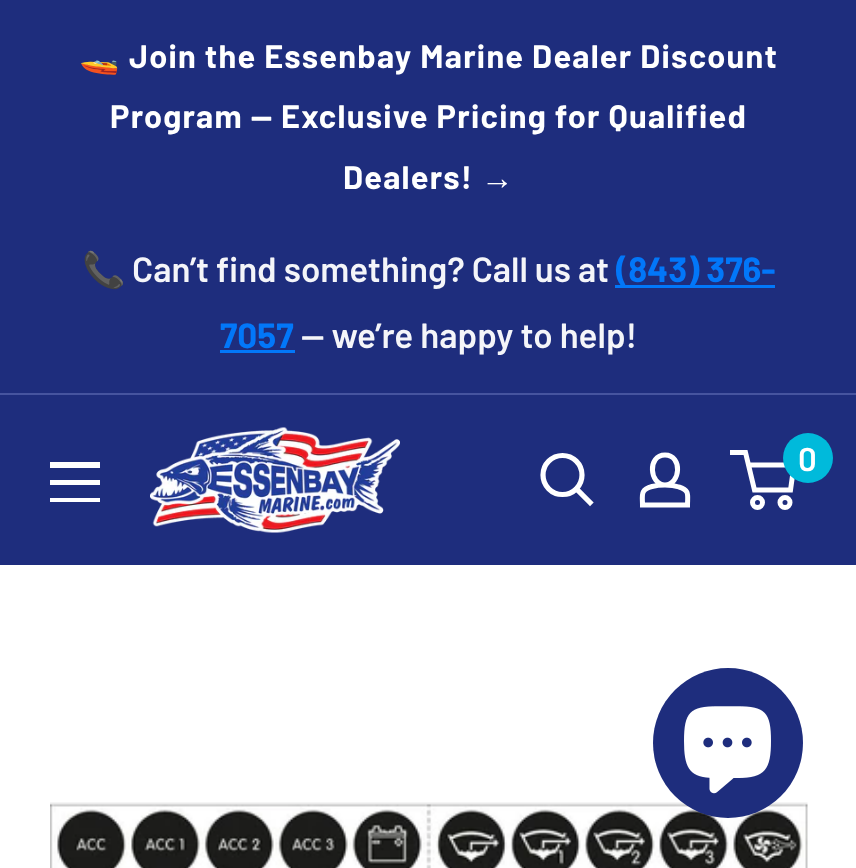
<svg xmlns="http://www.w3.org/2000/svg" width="856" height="868">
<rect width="100%" height="100%" fill="#1e2d7d"/>
<rect y="393" width="856" height="2" fill="#46549f"/>
<text x="79" y="68" style="font-family:Noto Color Emoji;font-size:32.5px;font-weight:bold;letter-spacing:1.25px;fill:#fff">🚤</text>
<text x="129" y="68" style="font-family:Barlow;font-size:32.5px;font-weight:bold;letter-spacing:1.25px;fill:#fff">Join the Essenbay Marine Dealer Discount</text>
<text x="110" y="128" style="font-family:Barlow;font-size:32.5px;font-weight:bold;letter-spacing:1.25px;fill:#fff">Program — Exclusive Pricing for Qualified</text>
<text x="343" y="189" style="font-family:Barlow;font-size:32.5px;font-weight:bold;letter-spacing:1.25px;fill:#fff">Dealers!</text>
<text x="481" y="189" style="font-family:Liberation Sans;font-size:32.5px;font-weight:bold;letter-spacing:1.25px;fill:#fff">→</text>
<text x="82" y="282" style="font-family:Noto Color Emoji;font-size:35px;font-weight:bold;fill:#f4f5f9">📞</text>
<text x="132" y="282" style="font-family:Barlow;font-size:35px;font-weight:600;fill:#f4f5f9">Can’t find something? Call us at</text>
<rect x="615" y="285" width="160" height="3" fill="#0277f9"/>
<text x="616" y="282" style="font-family:Barlow;font-size:35px;font-weight:bold;fill:#0277f9">(843) 376-</text>
<text x="220" y="348" style="font-family:Barlow;font-size:35px;font-weight:bold;fill:#0277f9">7057</text>
<rect x="220" y="350" width="75" height="3" fill="#0277f9"/>
<text x="301" y="348" style="font-family:Barlow;font-size:35px;font-weight:600;fill:#f4f5f9">— we’re happy to help!</text>
<image x="150" y="427" width="250" height="106" href="media/1.png"/>
<path d="M590 502.5l-13.5-13.5" fill="none" stroke="#fff" stroke-width="5.2" stroke-linecap="square"/>
<circle cx="562.5" cy="475" r="19.5" fill="none" stroke="#fff" stroke-width="5.2"/>
<path d="M665 485c4.5 0 9.5 .5 14 2c11 3 8.5 8.5 8.5 18h-45c0-10-2.5-15.5 9.5-18.5c4-1 8.5-1.5 13-1.5zm0 0c-15.5 0-18-30 0-30c18 0 15.5 30 0 30z" fill="none" stroke="#fff" stroke-width="5"/>
<circle cx="757.5" cy="502.5" r="5" fill="none" stroke="#fff" stroke-width="5"/>
<circle cx="785" cy="502.5" r="5" fill="none" stroke="#fff" stroke-width="5"/>
<path d="M748.5 465h45.5l-3.5 25h-36l-9-37.5h-15.5" fill="none" stroke="#fff" stroke-width="5"/>
<circle cx="808" cy="458" r="25" fill="#00badb"/>
<text x="798" y="471" style="font-family:Barlow;font-size:33px;font-weight:600;fill:#fff">0</text>
<path d="M50 498h50v4h-50zm0-36h50v6h-50zm0 18h50v5h-50z" fill="#fff" fill-rule="evenodd"/>
<rect y="565" width="856" height="303" fill="#fff"/>
<image x="50" y="802" width="758" height="66" href="media/2.png"/>
<circle cx="728" cy="743" r="75" fill="#1e2d7d"/>
<image x="684" y="706" width="87" height="88" href="media/3.png"/>
</svg>
